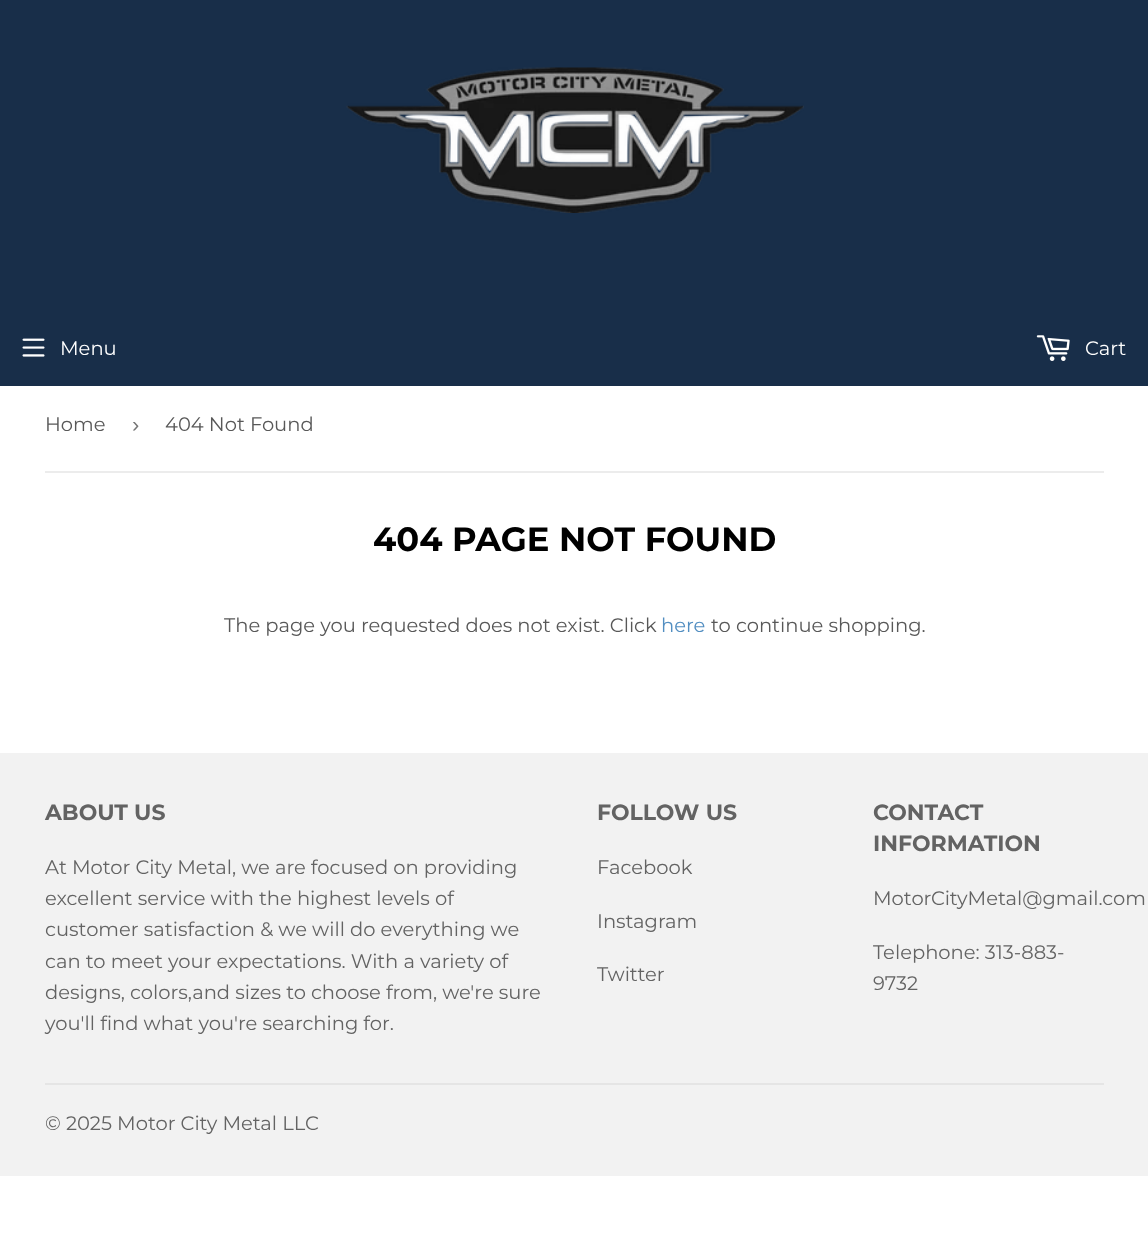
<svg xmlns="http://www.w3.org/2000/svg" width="1148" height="1238">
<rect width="100%" height="100%" fill="#fff"/>
<rect width="1148" height="386" fill="#182e49"/>
<image x="346" y="67" width="458" height="146" href="media/1.png"/>
<image x="22" y="338" width="23" height="19" href="media/2.png"/>
<text x="60" y="355" style="font-family:Montserrat;font-size:19.5px;fill:#fff">Menu</text>
<image x="1036" y="335" width="34" height="26" href="media/3.png"/>
<text x="1085" y="355" style="font-family:Montserrat;font-size:19.5px;fill:#fff">Cart</text>
<rect x="45" y="471" width="1059" height="2" fill="#ececec"/>
<text x="45" y="431" style="font-family:Montserrat;font-size:19.5px;fill:#585858">Home</text>
<text x="132" y="432" style="font-family:Liberation Sans;font-size:22px;fill:#767676">›</text>
<text x="165" y="431" style="font-family:Montserrat;font-size:19.5px;fill:#585858">404 Not Found</text>
<text x="373" y="551" style="font-family:Montserrat;font-size:33.75px;font-weight:bold;fill:#000">404 PAGE NOT FOUND</text>
<text x="224" y="632" style="font-family:Montserrat;font-size:19.5px;fill:#585858">The page you requested does not exist. Click</text>
<text x="661" y="632" style="font-family:Montserrat;font-size:19.5px;fill:#528ec1">here</text>
<text x="711" y="632" style="font-family:Montserrat;font-size:19.5px;fill:#585858">to continue shopping.</text>
<rect y="753" width="1148" height="423" fill="#f2f2f2"/>
<text x="45" y="820" style="font-family:Montserrat;font-size:22px;font-weight:bold;fill:#636363">ABOUT US</text>
<text x="45" y="874" style="font-family:Montserrat;font-size:19.5px;fill:#636363">At Motor City Metal, we are focused on providing</text>
<text x="45" y="905" style="font-family:Montserrat;font-size:19.5px;fill:#636363">excellent service with the highest levels of</text>
<text x="45" y="936" style="font-family:Montserrat;font-size:19.5px;fill:#636363">customer satisfaction &amp; we will do everything we</text>
<text x="45" y="968" style="font-family:Montserrat;font-size:19.5px;fill:#636363">can to meet your expectations. With a variety of</text>
<text x="45" y="999" style="font-family:Montserrat;font-size:19.5px;fill:#636363">designs, colors,and sizes to choose from, we're sure</text>
<text x="45" y="1030" style="font-family:Montserrat;font-size:19.5px;fill:#636363">you'll find what you're searching for.</text>
<text x="597" y="820" style="font-family:Montserrat;font-size:22px;font-weight:bold;fill:#636363">FOLLOW US</text>
<text x="597" y="874" style="font-family:Montserrat;font-size:19.5px;fill:#636363">Facebook</text>
<text x="597" y="928" style="font-family:Montserrat;font-size:19.5px;fill:#636363">Instagram</text>
<text x="597" y="981" style="font-family:Montserrat;font-size:19.5px;fill:#636363">Twitter</text>
<text x="873" y="820" style="font-family:Montserrat;font-size:22px;font-weight:bold;fill:#636363">CONTACT</text>
<text x="873" y="851" style="font-family:Montserrat;font-size:22px;font-weight:bold;fill:#636363">INFORMATION</text>
<text x="873" y="905" style="font-family:Montserrat;font-size:19.5px;fill:#636363">MotorCityMetal@gmail.com</text>
<text x="873" y="959" style="font-family:Montserrat;font-size:19.5px;fill:#636363">Telephone: 313-883-</text>
<text x="873" y="990" style="font-family:Montserrat;font-size:19.5px;fill:#636363">9732</text>
<rect x="45" y="1083" width="1059" height="2" fill="#e5e5e5"/>
<text x="45" y="1130" style="font-family:Montserrat;font-size:19.5px;fill:#636363">© 2025 Motor City Metal LLC</text>
</svg>
